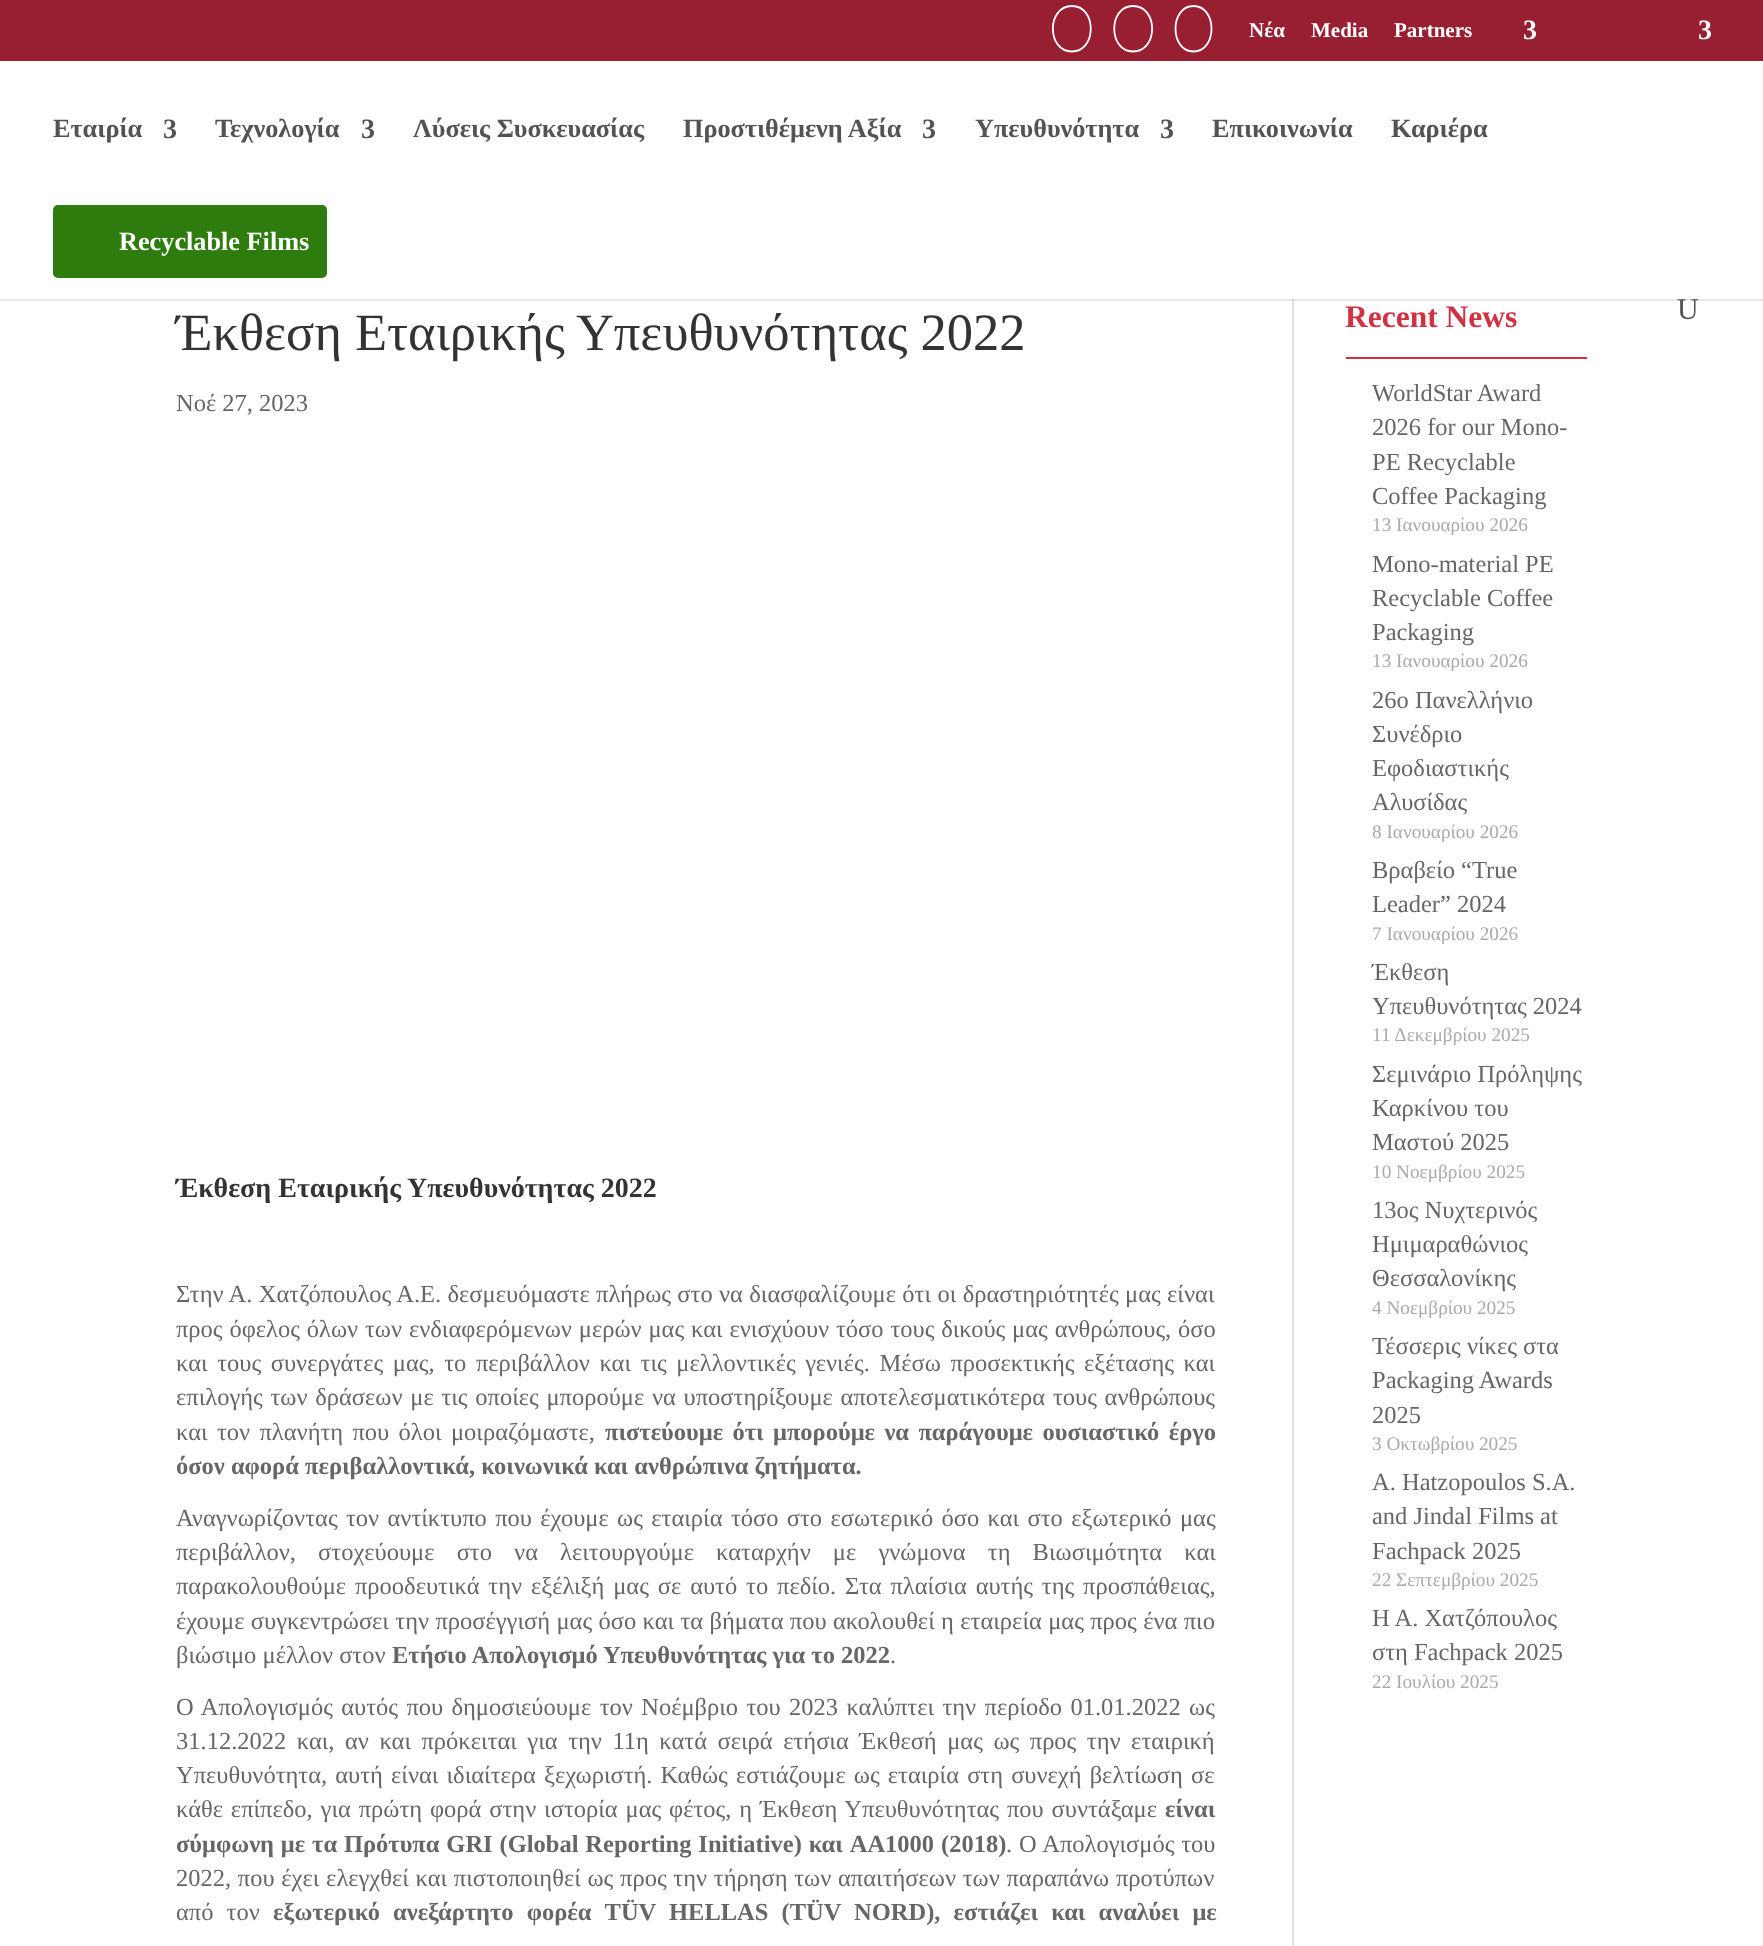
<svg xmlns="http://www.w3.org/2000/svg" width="1763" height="1946">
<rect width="100%" height="100%" fill="#fff"/>
<rect y="299" width="1763" height="2" fill="#e6e6e6"/>
<rect width="1763" height="61" fill="#981e32"/>
<path d="M1072 6c25 0 25 45.5 0 45.5c-25.5 0-25.5-45.5 0-45.5z" fill="none" stroke="#fff" stroke-width="1.8"/>
<path d="M1133 6c25.5 0 25.5 45.5 0 45.5c-25 0-25-45.5 0-45.5z" fill="none" stroke="#fff" stroke-width="1.8"/>
<path d="M1193.5 6c24 0 24 45.5 0 45.5c-24 0-24-45.5 0-45.5z" fill="none" stroke="#fff" stroke-width="1.8"/>
<text x="1249" y="37" style="font-family:Liberation Serif;font-size:21px;font-weight:bold;fill:#fff">Νέα</text>
<text x="1311" y="37" style="font-family:Liberation Serif;font-size:21px;font-weight:bold;fill:#fff">Media</text>
<text x="1394" y="37" style="font-family:Liberation Serif;font-size:21px;font-weight:bold;fill:#fff">Partners</text>
<text x="1523" y="39" style="font-family:Liberation Serif;font-size:28px;font-weight:bold;fill:#fff">3</text>
<text x="1698" y="39" style="font-family:Liberation Serif;font-size:28px;font-weight:bold;fill:#fff">3</text>
<text x="53" y="137" style="font-family:Liberation Serif;font-size:26.25px;font-weight:bold;fill:#535353">Εταιρία</text>
<text x="163" y="138" style="font-family:Liberation Serif;font-size:28px;font-weight:bold;fill:#535353">3</text>
<text x="215" y="137" style="font-family:Liberation Serif;font-size:26.25px;font-weight:bold;fill:#535353">Τεχνολογία</text>
<text x="361" y="138" style="font-family:Liberation Serif;font-size:28px;font-weight:bold;fill:#535353">3</text>
<text x="413" y="137" style="font-family:Liberation Serif;font-size:26.25px;font-weight:bold;fill:#535353">Λύσεις Συσκευασίας</text>
<text x="683" y="137" style="font-family:Liberation Serif;font-size:26.25px;font-weight:bold;fill:#535353">Προστιθέμενη Αξία</text>
<text x="922" y="138" style="font-family:Liberation Serif;font-size:28px;font-weight:bold;fill:#535353">3</text>
<text x="975" y="137" style="font-family:Liberation Serif;font-size:26.25px;font-weight:bold;fill:#535353">Υπευθυνότητα</text>
<text x="1160" y="138" style="font-family:Liberation Serif;font-size:28px;font-weight:bold;fill:#535353">3</text>
<text x="1212" y="137" style="font-family:Liberation Serif;font-size:26.25px;font-weight:bold;fill:#535353">Επικοινωνία</text>
<text x="1391" y="137" style="font-family:Liberation Serif;font-size:26.25px;font-weight:bold;fill:#535353">Καριέρα</text>
<rect x="53" y="205" width="274" height="73" rx="5" fill="#2d7c0d"/>
<text x="119" y="250" style="font-family:Liberation Serif;font-size:26.25px;font-weight:bold;fill:#fff">Recyclable Films</text>
<text x="1677" y="319" style="font-family:Liberation Serif;font-size:30px;fill:#535353">U</text>
<rect x="1292" y="301" width="2" height="1645" fill="#e2e2e2"/>
<rect x="1292" y="299" width="2" height="2" fill="#cbcbcb"/>
<text x="176" y="350" style="font-family:Liberation Serif;font-size:52.5px;fill:#333">Έκθεση Εταιρικής Υπευθυνότητας 2022</text>
<text x="176" y="411" style="font-family:Liberation Serif;font-size:24.5px;fill:#666">Νοέ 27, 2023</text>
<text x="176" y="1197" style="font-family:Liberation Serif;font-size:28px;font-weight:bold;fill:#333">Έκθεση Εταιρικής Υπευθυνότητας 2022</text>
<text x="176" y="1302" word-spacing="0.25" style="font-family:Liberation Serif;font-size:24.5px;fill:#666">Στην Α. Χατζόπουλος Α.Ε. δεσμευόμαστε πλήρως στο να διασφαλίζουμε ότι οι δραστηριότητές μας είναι</text>
<text x="176" y="1337" word-spacing="0.75" style="font-family:Liberation Serif;font-size:24.5px;fill:#666">προς όφελος όλων των ενδιαφερόμενων μερών μας και ενισχύουν τόσο τους δικούς μας ανθρώπους, όσο</text>
<text x="176" y="1371" word-spacing="3.5" style="font-family:Liberation Serif;font-size:24.5px;fill:#666">και τους συνεργάτες μας, το περιβάλλον και τις μελλοντικές γενιές. Μέσω προσεκτικής εξέτασης και</text>
<text x="176" y="1405" word-spacing="1.6" style="font-family:Liberation Serif;font-size:24.5px;fill:#666">επιλογής των δράσεων με τις οποίες μπορούμε να υποστηρίξουμε αποτελεσματικότερα τους ανθρώπους</text>
<text x="176" y="1440" word-spacing="3.25" style="font-family:Liberation Serif;font-size:24.5px;fill:#666">και τον πλανήτη που όλοι μοιραζόμαστε,</text>
<text x="605" y="1440" word-spacing="3.25" style="font-family:Liberation Serif;font-size:24.5px;font-weight:bold;fill:#666">πιστεύουμε ότι μπορούμε να παράγουμε ουσιαστικό έργο</text>
<text x="176" y="1474" style="font-family:Liberation Serif;font-size:24.5px;font-weight:bold;fill:#666">όσον αφορά περιβαλλοντικά, κοινωνικά και ανθρώπινα ζητήματα.</text>
<text x="176" y="1526" word-spacing="2.25" style="font-family:Liberation Serif;font-size:24.5px;fill:#666">Αναγνωρίζοντας τον αντίκτυπο που έχουμε ως εταιρία τόσο στο εσωτερικό όσο και στο εξωτερικό μας</text>
<text x="176" y="1560" word-spacing="16" style="font-family:Liberation Serif;font-size:24.5px;fill:#666">περιβάλλον, στοχεύουμε στο να λειτουργούμε καταρχήν με γνώμονα τη Βιωσιμότητα και</text>
<text x="176" y="1594" word-spacing="2.75" style="font-family:Liberation Serif;font-size:24.5px;fill:#666">παρακολουθούμε προοδευτικά την εξέλιξή μας σε αυτό το πεδίο. Στα πλαίσια αυτής της προσπάθειας,</text>
<text x="176" y="1629" word-spacing="0.25" style="font-family:Liberation Serif;font-size:24.5px;fill:#666">έχουμε συγκεντρώσει την προσέγγισή μας όσο και τα βήματα που ακολουθεί η εταιρεία μας προς ένα πιο</text>
<text x="176" y="1663" style="font-family:Liberation Serif;font-size:24.5px;fill:#666">βιώσιμο μέλλον στον</text>
<text x="392" y="1663" style="font-family:Liberation Serif;font-size:24.5px;font-weight:bold;fill:#666">Ετήσιο Απολογισμό Υπευθυνότητας για το 2022</text>
<text x="890" y="1663" style="font-family:Liberation Serif;font-size:24.5px;fill:#666">.</text>
<text x="176" y="1715" word-spacing="2.25" style="font-family:Liberation Serif;font-size:24.5px;fill:#666">Ο Απολογισμός αυτός που δημοσιεύουμε τον Νοέμβριο του 2023 καλύπτει την περίοδο 01.01.2022 ως</text>
<text x="176" y="1749" word-spacing="4.4" style="font-family:Liberation Serif;font-size:24.5px;fill:#666">31.12.2022 και, αν και πρόκειται για την 11η κατά σειρά ετήσια Έκθεσή μας ως προς την εταιρική</text>
<text x="176" y="1783" word-spacing="2" style="font-family:Liberation Serif;font-size:24.5px;fill:#666">Υπευθυνότητα, αυτή είναι ιδιαίτερα ξεχωριστή. Καθώς εστιάζουμε ως εταιρία στη συνεχή βελτίωση σε</text>
<text x="176" y="1817" word-spacing="1.75" style="font-family:Liberation Serif;font-size:24.5px;fill:#666">κάθε επίπεδο, για πρώτη φορά στην ιστορία μας φέτος, η Έκθεση Υπευθυνότητας που συντάξαμε</text>
<text x="1165" y="1817" style="font-family:Liberation Serif;font-size:24.5px;font-weight:bold;fill:#666">είναι</text>
<text x="176" y="1852" word-spacing="0.75" style="font-family:Liberation Serif;font-size:24.5px;font-weight:bold;fill:#666">σύμφωνη με τα Πρότυπα GRI (Global Reporting Initiative) και AA1000 (2018)</text>
<text x="1006" y="1852" word-spacing="0.75" style="font-family:Liberation Serif;font-size:24.5px;fill:#666">. Ο Απολογισμός του</text>
<text x="176" y="1886" word-spacing="0.6" style="font-family:Liberation Serif;font-size:24.5px;fill:#666">2022, που έχει ελεγχθεί και πιστοποιηθεί ως προς την τήρηση των απαιτήσεων των παραπάνω προτύπων</text>
<text x="176" y="1920" word-spacing="7" style="font-family:Liberation Serif;font-size:24.5px;fill:#666">από τον</text>
<text x="273" y="1920" word-spacing="7" style="font-family:Liberation Serif;font-size:24.5px;font-weight:bold;fill:#666">εξωτερικό ανεξάρτητο φορέα TÜV HELLAS (TÜV NORD), εστιάζει και αναλύει με</text>
<rect x="1346" y="357" width="241" height="2" fill="#ce3243"/>
<text x="1345" y="327" style="font-family:Liberation Serif;font-size:31.5px;font-weight:bold;fill:#ce3243">Recent News</text>
<text x="1372" y="401" style="font-family:Liberation Serif;font-size:24.5px;fill:#666">WorldStar Award</text>
<text x="1372" y="435" style="font-family:Liberation Serif;font-size:24.5px;fill:#666">2026 for our Mono-</text>
<text x="1372" y="470" style="font-family:Liberation Serif;font-size:24.5px;fill:#666">PE Recyclable</text>
<text x="1372" y="504" style="font-family:Liberation Serif;font-size:24.5px;fill:#666">Coffee Packaging</text>
<text x="1372" y="531" style="font-family:Liberation Serif;font-size:19.25px;fill:#ada9a9">13 Ιανουαρίου 2026</text>
<text x="1372" y="572" style="font-family:Liberation Serif;font-size:24.5px;fill:#666">Mono-material PE</text>
<text x="1372" y="606" style="font-family:Liberation Serif;font-size:24.5px;fill:#666">Recyclable Coffee</text>
<text x="1372" y="640" style="font-family:Liberation Serif;font-size:24.5px;fill:#666">Packaging</text>
<text x="1372" y="667" style="font-family:Liberation Serif;font-size:19.25px;fill:#ada9a9">13 Ιανουαρίου 2026</text>
<text x="1372" y="708" style="font-family:Liberation Serif;font-size:24.5px;fill:#666">26ο Πανελλήνιο</text>
<text x="1372" y="742" style="font-family:Liberation Serif;font-size:24.5px;fill:#666">Συνέδριο</text>
<text x="1372" y="776" style="font-family:Liberation Serif;font-size:24.5px;fill:#666">Εφοδιαστικής</text>
<text x="1372" y="810" style="font-family:Liberation Serif;font-size:24.5px;fill:#666">Αλυσίδας</text>
<text x="1372" y="838" style="font-family:Liberation Serif;font-size:19.25px;fill:#ada9a9">8 Ιανουαρίου 2026</text>
<text x="1372" y="878" style="font-family:Liberation Serif;font-size:24.5px;fill:#666">Βραβείο “True</text>
<text x="1372" y="912" style="font-family:Liberation Serif;font-size:24.5px;fill:#666">Leader” 2024</text>
<text x="1372" y="940" style="font-family:Liberation Serif;font-size:19.25px;fill:#ada9a9">7 Ιανουαρίου 2026</text>
<text x="1372" y="980" style="font-family:Liberation Serif;font-size:24.5px;fill:#666">Έκθεση</text>
<text x="1372" y="1014" style="font-family:Liberation Serif;font-size:24.5px;fill:#666">Υπευθυνότητας 2024</text>
<text x="1372" y="1041" style="font-family:Liberation Serif;font-size:19.25px;fill:#ada9a9">11 Δεκεμβρίου 2025</text>
<text x="1372" y="1082" style="font-family:Liberation Serif;font-size:24.5px;fill:#666">Σεμινάριο Πρόληψης</text>
<text x="1372" y="1116" style="font-family:Liberation Serif;font-size:24.5px;fill:#666">Καρκίνου του</text>
<text x="1372" y="1150" style="font-family:Liberation Serif;font-size:24.5px;fill:#666">Μαστού 2025</text>
<text x="1372" y="1178" style="font-family:Liberation Serif;font-size:19.25px;fill:#ada9a9">10 Νοεμβρίου 2025</text>
<text x="1372" y="1218" style="font-family:Liberation Serif;font-size:24.5px;fill:#666">13ος Νυχτερινός</text>
<text x="1372" y="1252" style="font-family:Liberation Serif;font-size:24.5px;fill:#666">Ημιμαραθώνιος</text>
<text x="1372" y="1286" style="font-family:Liberation Serif;font-size:24.5px;fill:#666">Θεσσαλονίκης</text>
<text x="1372" y="1314" style="font-family:Liberation Serif;font-size:19.25px;fill:#ada9a9">4 Νοεμβρίου 2025</text>
<text x="1372" y="1354" style="font-family:Liberation Serif;font-size:24.5px;fill:#666">Τέσσερις νίκες στα</text>
<text x="1372" y="1388" style="font-family:Liberation Serif;font-size:24.5px;fill:#666">Packaging Awards</text>
<text x="1372" y="1423" style="font-family:Liberation Serif;font-size:24.5px;fill:#666">2025</text>
<text x="1372" y="1450" style="font-family:Liberation Serif;font-size:19.25px;fill:#ada9a9">3 Οκτωβρίου 2025</text>
<text x="1372" y="1490" style="font-family:Liberation Serif;font-size:24.5px;fill:#666">A. Hatzopoulos S.A.</text>
<text x="1372" y="1524" style="font-family:Liberation Serif;font-size:24.5px;fill:#666">and Jindal Films at</text>
<text x="1372" y="1559" style="font-family:Liberation Serif;font-size:24.5px;fill:#666">Fachpack 2025</text>
<text x="1372" y="1586" style="font-family:Liberation Serif;font-size:19.25px;fill:#ada9a9">22 Σεπτεμβρίου 2025</text>
<text x="1372" y="1626" style="font-family:Liberation Serif;font-size:24.5px;fill:#666">Η Α. Χατζόπουλος</text>
<text x="1372" y="1660" style="font-family:Liberation Serif;font-size:24.5px;fill:#666">στη Fachpack 2025</text>
<text x="1372" y="1688" style="font-family:Liberation Serif;font-size:19.25px;fill:#ada9a9">22 Ιουλίου 2025</text>
</svg>
